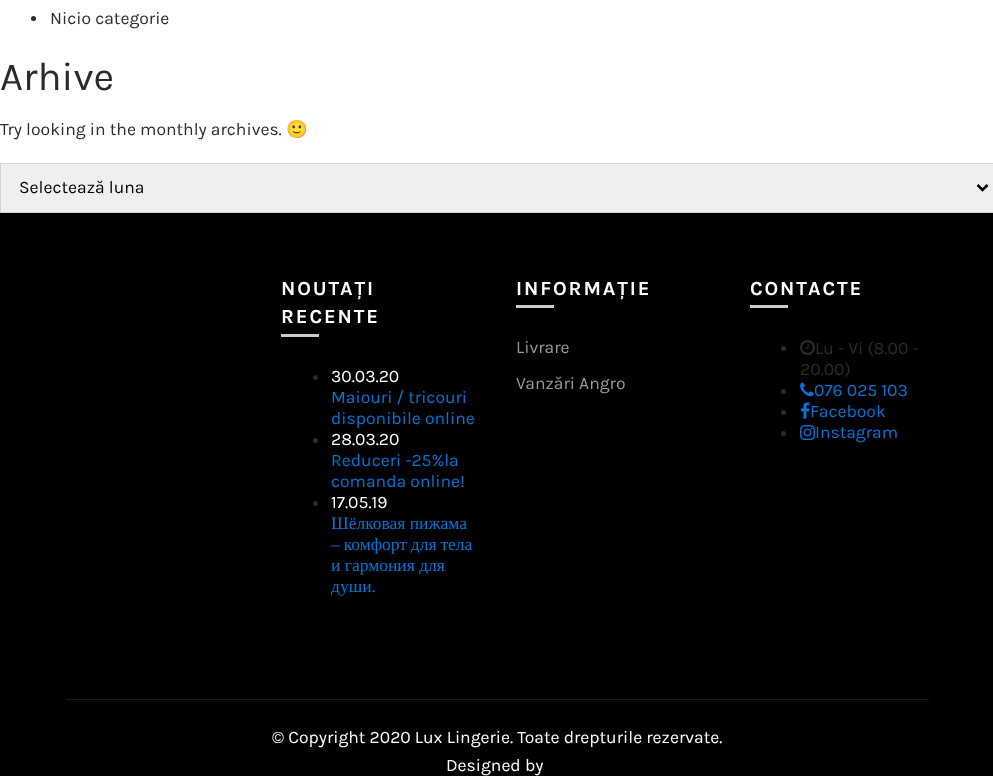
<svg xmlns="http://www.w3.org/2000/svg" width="993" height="776">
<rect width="100%" height="100%" fill="#fff"/>
<circle cx="33.5" cy="18.5" r="2.5" fill="#292b2c"/>
<text x="50" y="24" style="font-family:Karla;font-size:17.5px;fill:#292b2c">Nicio categorie</text>
<text x="0" y="90" style="font-family:Karla;font-size:40px;fill:#292b2c">Arhive</text>
<text x="0" y="135" style="font-family:Karla;font-size:17.5px;fill:#292b2c">Try looking in the monthly archives.</text>
<text x="286" y="135" style="font-family:Noto Color Emoji;font-size:17.5px;fill:#292b2c">🙂</text>
<rect x="0.5" y="163.5" width="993" height="49" fill="#efefef" stroke="#d4d4d4"/>
<path d="M977.5 185l5 5l5-5" fill="none" stroke="#000" stroke-width="2.5"/>
<text x="19" y="193" style="font-family:Karla;font-size:17.5px;fill:#000">Selectează luna</text>
<rect y="213" width="993" height="563" fill="#000"/>
<text x="281" y="295" style="font-family:Karla;font-size:20px;font-weight:bold;letter-spacing:1.9px;fill:#fff">NOUTAȚI</text>
<text x="281" y="323" style="font-family:Karla;font-size:20px;font-weight:bold;letter-spacing:1.9px;fill:#fff">RECENTE</text>
<rect x="281" y="334" width="38" height="3" fill="#ccc"/>
<circle cx="315.5" cy="377.5" r="2.5" fill="#292b2c"/>
<text x="331" y="382" style="font-family:Karla;font-size:17.5px;fill:#fff">30.03.20</text>
<text x="331" y="403" style="font-family:Karla;font-size:17.5px;fill:#0275d8">Maiouri / tricouri</text>
<text x="331" y="424" style="font-family:Karla;font-size:17.5px;fill:#0275d8">disponibile online</text>
<circle cx="315.5" cy="440.5" r="2.5" fill="#292b2c"/>
<text x="331" y="445" style="font-family:Karla;font-size:17.5px;fill:#fff">28.03.20</text>
<text x="331" y="466" style="font-family:Karla;font-size:17.5px;fill:#0275d8">Reduceri -25%la</text>
<text x="331" y="487" style="font-family:Karla;font-size:17.5px;fill:#0275d8">comanda online!</text>
<circle cx="315.5" cy="503.5" r="2.5" fill="#292b2c"/>
<text x="331" y="508" style="font-family:Karla;font-size:17.5px;fill:#fff">17.05.19</text>
<text x="331" y="529" style="font-family:Liberation Serif;font-size:17.5px;fill:#0275d8">Шёлковая пижама</text>
<text x="331" y="550" word-spacing="-0.5" style="font-family:Liberation Serif;font-size:17.5px;fill:#0275d8">– комфорт для тела</text>
<text x="331" y="571" style="font-family:Liberation Serif;font-size:17.5px;fill:#0275d8">и гармония для</text>
<text x="331" y="592" style="font-family:Liberation Serif;font-size:17.5px;fill:#0275d8">души.</text>
<text x="516" y="295" style="font-family:Karla;font-size:20px;font-weight:bold;letter-spacing:1.9px;fill:#fff">INFORMAȚIE</text>
<rect x="516" y="305" width="38" height="3" fill="#ccc"/>
<text x="516" y="353" style="font-family:Karla;font-size:17.5px;fill:#999">Livrare</text>
<text x="516" y="389" style="font-family:Karla;font-size:17.5px;fill:#999">Vanzări Angro</text>
<text x="750" y="295" style="font-family:Karla;font-size:20px;font-weight:bold;letter-spacing:1.9px;fill:#fff">CONTACTE</text>
<rect x="750" y="305" width="38" height="3" fill="#ccc"/>
<circle cx="783.5" cy="348.5" r="2.5" fill="#292b2c"/>
<image x="800" y="340" width="15" height="15" href="media/1.png"/>
<text x="815" y="354" style="font-family:Karla;font-size:17.5px;fill:#292b2c">Lu - Vi (8.00 -</text>
<text x="800" y="375" style="font-family:Karla;font-size:17.5px;fill:#292b2c">20.00)</text>
<circle cx="783.5" cy="391.5" r="2.5" fill="#292b2c"/>
<image x="800" y="382" width="14" height="15" href="media/2.png"/>
<text x="814" y="396" style="font-family:Karla;font-size:17.5px;fill:#0275d8">076 025 103</text>
<circle cx="783.5" cy="412.5" r="2.5" fill="#292b2c"/>
<image x="800" y="402" width="10" height="17" href="media/3.png"/>
<text x="810" y="417" style="font-family:Karla;font-size:17.5px;fill:#0275d8">Facebook</text>
<circle cx="783.5" cy="433.5" r="2.5" fill="#292b2c"/>
<image x="800" y="425" width="15" height="15" href="media/4.png"/>
<text x="815" y="438" style="font-family:Karla;font-size:17.5px;fill:#0275d8">Instagram</text>
<rect x="66" y="699" width="863" height="1" fill="#1a1a1a"/>
<text x="272" y="743" style="font-family:Karla;font-size:17.5px;fill:#fff">© Copyright 2020 Lux Lingerie. Toate drepturile rezervate.</text>
<text x="446" y="771" style="font-family:Karla;font-size:17.5px;fill:#fff">Designed by</text>
</svg>
